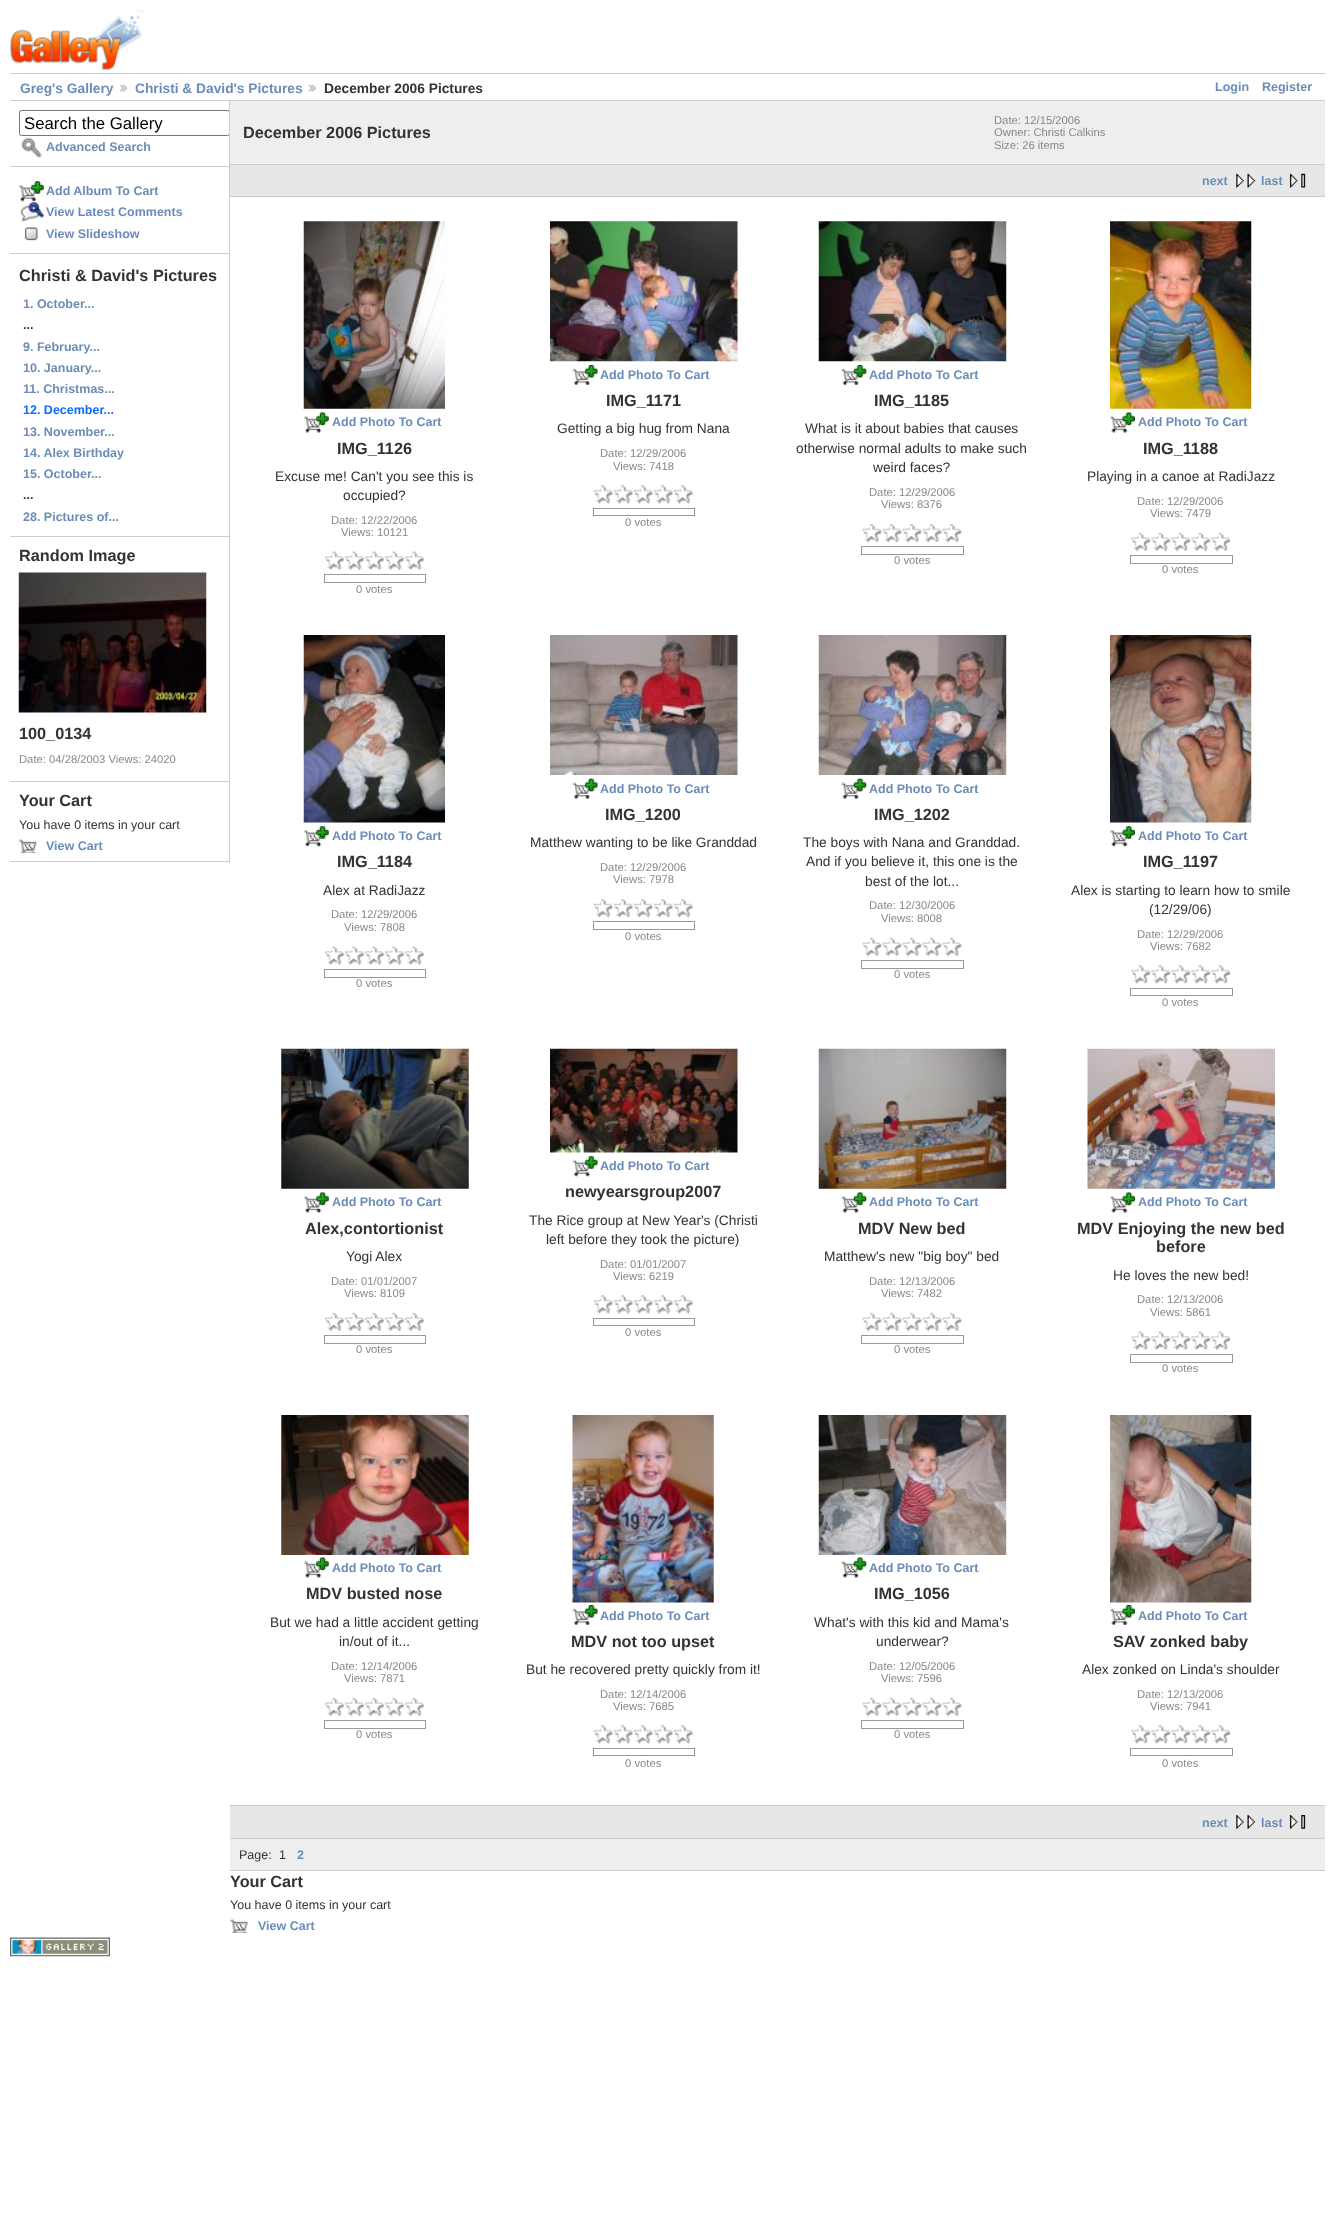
<svg xmlns="http://www.w3.org/2000/svg" width="1335" height="2214">
<defs>
<clipPath id="clip1"><rect x="10" y="101" width="219" height="762"/></clipPath>
</defs>
<rect width="100%" height="100%" fill="#fff"/>
<image x="10" y="10" width="134" height="60" href="media/1.png"/>
<rect x="10" y="73" width="1315" height="1" fill="#ccc"/>
<rect x="10" y="100" width="1315" height="1" fill="#ccc"/>
<text x="20" y="93" style="font-family:Liberation Sans;font-size:13.75px;font-weight:bold;fill:#6b8cb7">Greg's Gallery</text>
<image x="120" y="84" width="8" height="8" href="media/2.png"/>
<text x="135" y="93" style="font-family:Liberation Sans;font-size:13.75px;font-weight:bold;fill:#6b8cb7">Christi &amp; David's Pictures</text>
<image x="308" y="85" width="9" height="7" href="media/3.png"/>
<text x="324" y="93" style="font-family:Liberation Sans;font-size:13.75px;font-weight:bold;fill:#333">December 2006 Pictures</text>
<text x="1215" y="91" style="font-family:Liberation Sans;font-size:12.5px;font-weight:bold;fill:#6b8cb7">Login</text>
<text x="1262" y="91" style="font-family:Liberation Sans;font-size:12.5px;font-weight:bold;fill:#6b8cb7">Register</text>
<rect x="229" y="101" width="1" height="762" fill="#ccc"/>
<rect x="10" y="166" width="219" height="1" fill="#ccc"/>
<g clip-path="url(#clip1)">
<rect x="19.5" y="110.5" width="210" height="25" rx="2" fill="none" stroke="#767676"/>
</g>
<text x="24" y="129" style="font-family:Liberation Sans;font-size:16.75px;fill:#000">Search the Gallery</text>
<image x="21" y="137" width="21" height="21" href="media/4.png"/>
<text x="46" y="151" style="font-family:Liberation Sans;font-size:12.5px;font-weight:bold;fill:#6b8cb7">Advanced Search</text>
<rect x="10" y="253" width="219" height="1" fill="#ccc"/>
<image x="18" y="181" width="26" height="21" href="media/5.png"/>
<text x="46" y="195" style="font-family:Liberation Sans;font-size:12.5px;font-weight:bold;fill:#6b8cb7">Add Album To Cart</text>
<image x="20" y="202" width="24" height="20" href="media/6.png"/>
<text x="46" y="216" style="font-family:Liberation Sans;font-size:12.5px;font-weight:bold;fill:#6b8cb7">View Latest Comments</text>
<image x="24" y="227" width="14" height="14" href="media/7.png"/>
<text x="46" y="238" style="font-family:Liberation Sans;font-size:12.5px;font-weight:bold;fill:#6b8cb7">View Slideshow</text>
<rect x="10" y="536" width="219" height="1" fill="#ccc"/>
<text x="19" y="281" style="font-family:Liberation Sans;font-size:16.25px;font-weight:bold;fill:#333">Christi &amp; David's Pictures</text>
<text x="23" y="308" style="font-family:Liberation Sans;font-size:12.5px;font-weight:bold;fill:#6b8cb7">1. October...</text>
<text x="23" y="329" style="font-family:Liberation Sans;font-size:12.5px;font-weight:bold;fill:#333">...</text>
<text x="23" y="351" style="font-family:Liberation Sans;font-size:12.5px;font-weight:bold;fill:#6b8cb7">9. February...</text>
<text x="23" y="372" style="font-family:Liberation Sans;font-size:12.5px;font-weight:bold;fill:#6b8cb7">10. January...</text>
<text x="23" y="393" style="font-family:Liberation Sans;font-size:12.5px;font-weight:bold;fill:#6b8cb7">11. Christmas...</text>
<text x="23" y="414" style="font-family:Liberation Sans;font-size:12.5px;font-weight:bold;fill:#0b6cff">12. December...</text>
<text x="23" y="436" style="font-family:Liberation Sans;font-size:12.5px;font-weight:bold;fill:#6b8cb7">13. November...</text>
<text x="23" y="457" style="font-family:Liberation Sans;font-size:12.5px;font-weight:bold;fill:#6b8cb7">14. Alex Birthday</text>
<text x="23" y="478" style="font-family:Liberation Sans;font-size:12.5px;font-weight:bold;fill:#6b8cb7">15. October...</text>
<text x="23" y="499" style="font-family:Liberation Sans;font-size:12.5px;font-weight:bold;fill:#333">...</text>
<text x="23" y="521" style="font-family:Liberation Sans;font-size:12.5px;font-weight:bold;fill:#6b8cb7">28. Pictures of...</text>
<rect x="10" y="781" width="219" height="1" fill="#ccc"/>
<text x="19" y="561" style="font-family:Liberation Sans;font-size:16.25px;font-weight:bold;fill:#333">Random Image</text>
<image x="18" y="572" width="189" height="141" href="media/8.png"/>
<text x="19" y="739" style="font-family:Liberation Sans;font-size:16.25px;font-weight:bold;fill:#333">100_0134</text>
<text x="19" y="763" style="font-family:Liberation Sans;font-size:11.25px;fill:#888">Date: 04/28/2003 Views: 24020</text>
<rect x="10" y="861" width="219" height="1" fill="#ccc"/>
<text x="19" y="806" style="font-family:Liberation Sans;font-size:16.25px;font-weight:bold;fill:#333">Your Cart</text>
<text x="19" y="829" style="font-family:Liberation Sans;font-size:12.5px;fill:#333">You have 0 items in your cart</text>
<image x="18" y="839" width="19" height="14" href="media/9.png"/>
<text x="46" y="850" style="font-family:Liberation Sans;font-size:12.5px;font-weight:bold;fill:#6b8cb7">View Cart</text>
<rect x="230" y="101" width="1095" height="63" fill="#eee"/>
<rect x="230" y="164" width="1095" height="1" fill="#ccc"/>
<text x="243" y="138" style="font-family:Liberation Sans;font-size:16.25px;font-weight:bold;fill:#333">December 2006 Pictures</text>
<text x="994" y="124" style="font-family:Liberation Sans;font-size:11.25px;fill:#888">Date: 12/15/2006</text>
<text x="994" y="136" style="font-family:Liberation Sans;font-size:11.25px;fill:#888">Owner: Christi Calkins</text>
<text x="994" y="149" style="font-family:Liberation Sans;font-size:11.25px;fill:#888">Size: 26 items</text>
<rect x="230" y="165" width="1095" height="31" fill="#e7e7e7"/>
<rect x="230" y="196" width="1095" height="1" fill="#ccc"/>
<text x="1202" y="185" style="font-family:Liberation Sans;font-size:12.5px;font-weight:bold;fill:#6b8cb7">next</text>
<image x="1236" y="173" width="20" height="15" href="media/10.png"/>
<text x="1261" y="185" style="font-family:Liberation Sans;font-size:12.5px;font-weight:bold;fill:#6b8cb7">last</text>
<image x="1289" y="173" width="17" height="15" href="media/11.png"/>
<rect x="230" y="1805" width="1095" height="1" fill="#ccc"/>
<image x="303" y="221" width="142" height="188" href="media/12.png"/>
<image x="303" y="412" width="26" height="21" href="media/13.png"/>
<text x="332" y="426" style="font-family:Liberation Sans;font-size:12.5px;font-weight:bold;fill:#6b8cb7">Add Photo To Cart</text>
<text x="337" y="454" style="font-family:Liberation Sans;font-size:16.25px;font-weight:bold;fill:#333">IMG_1126</text>
<text x="275" y="481" style="font-family:Liberation Sans;font-size:13.75px;fill:#333">Excuse me! Can't you see this is</text>
<text x="343" y="500" style="font-family:Liberation Sans;font-size:13.75px;fill:#333">occupied?</text>
<text x="331" y="524" style="font-family:Liberation Sans;font-size:11.25px;fill:#888">Date: 12/22/2006</text>
<text x="341" y="536" style="font-family:Liberation Sans;font-size:11.25px;fill:#888">Views: 10121</text>
<image x="325" y="551" width="19" height="20" href="media/14.png"/>
<image x="345" y="551" width="19" height="20" href="media/14.png"/>
<image x="365" y="551" width="19" height="20" href="media/14.png"/>
<image x="385" y="551" width="19" height="20" href="media/14.png"/>
<image x="405" y="551" width="19" height="20" href="media/14.png"/>
<rect x="324.5" y="574.5" width="101" height="8" fill="none" stroke="#999"/>
<text x="356" y="593" style="font-family:Liberation Sans;font-size:11.25px;fill:#888">0 votes</text>
<image x="550" y="221" width="188" height="141" href="media/15.png"/>
<image x="572" y="365" width="26" height="20" href="media/16.png"/>
<text x="600" y="379" style="font-family:Liberation Sans;font-size:12.5px;font-weight:bold;fill:#6b8cb7">Add Photo To Cart</text>
<text x="606" y="406" style="font-family:Liberation Sans;font-size:16.25px;font-weight:bold;fill:#333">IMG_1171</text>
<text x="557" y="433" style="font-family:Liberation Sans;font-size:13.75px;fill:#333">Getting a big hug from Nana</text>
<text x="600" y="457" style="font-family:Liberation Sans;font-size:11.25px;fill:#888">Date: 12/29/2006</text>
<text x="613" y="470" style="font-family:Liberation Sans;font-size:11.25px;fill:#888">Views: 7418</text>
<image x="594" y="485" width="19" height="19" href="media/17.png"/>
<image x="614" y="485" width="19" height="19" href="media/17.png"/>
<image x="634" y="485" width="19" height="19" href="media/17.png"/>
<image x="654" y="485" width="19" height="19" href="media/17.png"/>
<image x="674" y="485" width="19" height="19" href="media/18.png"/>
<rect x="593.5" y="508.5" width="101" height="7" fill="none" stroke="#999"/>
<text x="625" y="526" style="font-family:Liberation Sans;font-size:11.25px;fill:#888">0 votes</text>
<image x="818" y="221" width="189" height="141" href="media/19.png"/>
<image x="841" y="365" width="26" height="20" href="media/20.png"/>
<text x="869" y="379" style="font-family:Liberation Sans;font-size:12.5px;font-weight:bold;fill:#6b8cb7">Add Photo To Cart</text>
<text x="874" y="406" style="font-family:Liberation Sans;font-size:16.25px;font-weight:bold;fill:#333">IMG_1185</text>
<text x="805" y="433" style="font-family:Liberation Sans;font-size:13.75px;fill:#333">What is it about babies that causes</text>
<text x="796" y="453" style="font-family:Liberation Sans;font-size:13.75px;fill:#333">otherwise normal adults to make such</text>
<text x="873" y="472" style="font-family:Liberation Sans;font-size:13.75px;fill:#333">weird faces?</text>
<text x="869" y="496" style="font-family:Liberation Sans;font-size:11.25px;fill:#888">Date: 12/29/2006</text>
<text x="881" y="508" style="font-family:Liberation Sans;font-size:11.25px;fill:#888">Views: 8376</text>
<image x="862" y="524" width="20" height="19" href="media/21.png"/>
<image x="882" y="524" width="20" height="19" href="media/21.png"/>
<image x="902" y="524" width="20" height="19" href="media/21.png"/>
<image x="922" y="524" width="20" height="19" href="media/22.png"/>
<image x="942" y="524" width="20" height="19" href="media/22.png"/>
<rect x="861.5" y="546.5" width="102" height="8" fill="none" stroke="#999"/>
<text x="894" y="564" style="font-family:Liberation Sans;font-size:11.25px;fill:#888">0 votes</text>
<image x="1110" y="221" width="142" height="188" href="media/23.png"/>
<image x="1110" y="412" width="25" height="21" href="media/24.png"/>
<text x="1138" y="426" style="font-family:Liberation Sans;font-size:12.5px;font-weight:bold;fill:#6b8cb7">Add Photo To Cart</text>
<text x="1143" y="454" style="font-family:Liberation Sans;font-size:16.25px;font-weight:bold;fill:#333">IMG_1188</text>
<text x="1087" y="481" style="font-family:Liberation Sans;font-size:13.75px;fill:#333">Playing in a canoe at RadiJazz</text>
<text x="1137" y="505" style="font-family:Liberation Sans;font-size:11.25px;fill:#888">Date: 12/29/2006</text>
<text x="1150" y="517" style="font-family:Liberation Sans;font-size:11.25px;fill:#888">Views: 7479</text>
<image x="1131" y="532" width="20" height="20" href="media/25.png"/>
<image x="1151" y="532" width="20" height="20" href="media/25.png"/>
<image x="1171" y="532" width="20" height="20" href="media/25.png"/>
<image x="1191" y="532" width="20" height="20" href="media/25.png"/>
<image x="1211" y="532" width="20" height="20" href="media/25.png"/>
<rect x="1130.5" y="555.5" width="102" height="8" fill="none" stroke="#999"/>
<text x="1162" y="573" style="font-family:Liberation Sans;font-size:11.25px;fill:#888">0 votes</text>
<image x="303" y="635" width="142" height="188" href="media/26.png"/>
<image x="303" y="826" width="26" height="21" href="media/5.png"/>
<text x="332" y="840" style="font-family:Liberation Sans;font-size:12.5px;font-weight:bold;fill:#6b8cb7">Add Photo To Cart</text>
<text x="337" y="867" style="font-family:Liberation Sans;font-size:16.25px;font-weight:bold;fill:#333">IMG_1184</text>
<text x="323" y="895" style="font-family:Liberation Sans;font-size:13.75px;fill:#333">Alex at RadiJazz</text>
<text x="331" y="918" style="font-family:Liberation Sans;font-size:11.25px;fill:#888">Date: 12/29/2006</text>
<text x="344" y="931" style="font-family:Liberation Sans;font-size:11.25px;fill:#888">Views: 7808</text>
<image x="325" y="946" width="19" height="20" href="media/14.png"/>
<image x="345" y="946" width="19" height="20" href="media/14.png"/>
<image x="365" y="946" width="19" height="20" href="media/14.png"/>
<image x="385" y="946" width="19" height="20" href="media/14.png"/>
<image x="405" y="946" width="19" height="20" href="media/14.png"/>
<rect x="324.5" y="969.5" width="101" height="8" fill="none" stroke="#999"/>
<text x="356" y="987" style="font-family:Liberation Sans;font-size:11.25px;fill:#888">0 votes</text>
<image x="550" y="635" width="188" height="140" href="media/27.png"/>
<image x="572" y="778" width="26" height="21" href="media/28.png"/>
<text x="600" y="793" style="font-family:Liberation Sans;font-size:12.5px;font-weight:bold;fill:#6b8cb7">Add Photo To Cart</text>
<text x="605" y="820" style="font-family:Liberation Sans;font-size:16.25px;font-weight:bold;fill:#333">IMG_1200</text>
<text x="530" y="847" style="font-family:Liberation Sans;font-size:13.75px;fill:#333">Matthew wanting to be like Granddad</text>
<text x="600" y="871" style="font-family:Liberation Sans;font-size:11.25px;fill:#888">Date: 12/29/2006</text>
<text x="613" y="883" style="font-family:Liberation Sans;font-size:11.25px;fill:#888">Views: 7978</text>
<image x="594" y="899" width="19" height="19" href="media/29.png"/>
<image x="614" y="899" width="19" height="19" href="media/29.png"/>
<image x="634" y="899" width="19" height="19" href="media/29.png"/>
<image x="654" y="899" width="19" height="19" href="media/29.png"/>
<image x="674" y="899" width="19" height="19" href="media/30.png"/>
<rect x="593.5" y="921.5" width="101" height="8" fill="none" stroke="#999"/>
<text x="625" y="940" style="font-family:Liberation Sans;font-size:11.25px;fill:#888">0 votes</text>
<image x="818" y="635" width="189" height="140" href="media/31.png"/>
<image x="841" y="778" width="26" height="21" href="media/32.png"/>
<text x="869" y="793" style="font-family:Liberation Sans;font-size:12.5px;font-weight:bold;fill:#6b8cb7">Add Photo To Cart</text>
<text x="874" y="820" style="font-family:Liberation Sans;font-size:16.25px;font-weight:bold;fill:#333">IMG_1202</text>
<text x="803" y="847" style="font-family:Liberation Sans;font-size:13.75px;fill:#333">The boys with Nana and Granddad.</text>
<text x="806" y="866" style="font-family:Liberation Sans;font-size:13.75px;fill:#333">And if you believe it, this one is the</text>
<text x="865" y="886" style="font-family:Liberation Sans;font-size:13.75px;fill:#333">best of the lot...</text>
<text x="869" y="909" style="font-family:Liberation Sans;font-size:11.25px;fill:#888">Date: 12/30/2006</text>
<text x="881" y="922" style="font-family:Liberation Sans;font-size:11.25px;fill:#888">Views: 8008</text>
<image x="862" y="937" width="20" height="20" href="media/33.png"/>
<image x="882" y="937" width="20" height="20" href="media/33.png"/>
<image x="902" y="937" width="20" height="20" href="media/33.png"/>
<image x="922" y="937" width="20" height="20" href="media/34.png"/>
<image x="942" y="937" width="20" height="20" href="media/34.png"/>
<rect x="861.5" y="960.5" width="102" height="8" fill="none" stroke="#999"/>
<text x="894" y="978" style="font-family:Liberation Sans;font-size:11.25px;fill:#888">0 votes</text>
<image x="1110" y="635" width="142" height="188" href="media/35.png"/>
<image x="1110" y="826" width="25" height="21" href="media/36.png"/>
<text x="1138" y="840" style="font-family:Liberation Sans;font-size:12.5px;font-weight:bold;fill:#6b8cb7">Add Photo To Cart</text>
<text x="1143" y="867" style="font-family:Liberation Sans;font-size:16.25px;font-weight:bold;fill:#333">IMG_1197</text>
<text x="1071" y="895" style="font-family:Liberation Sans;font-size:13.75px;fill:#333">Alex is starting to learn how to smile</text>
<text x="1149" y="914" style="font-family:Liberation Sans;font-size:13.75px;fill:#333">(12/29/06)</text>
<text x="1137" y="938" style="font-family:Liberation Sans;font-size:11.25px;fill:#888">Date: 12/29/2006</text>
<text x="1150" y="950" style="font-family:Liberation Sans;font-size:11.25px;fill:#888">Views: 7682</text>
<image x="1131" y="965" width="20" height="19" href="media/37.png"/>
<image x="1151" y="965" width="20" height="19" href="media/37.png"/>
<image x="1171" y="965" width="20" height="19" href="media/37.png"/>
<image x="1191" y="965" width="20" height="19" href="media/37.png"/>
<image x="1211" y="965" width="20" height="19" href="media/37.png"/>
<rect x="1130.5" y="988.5" width="102" height="7" fill="none" stroke="#999"/>
<text x="1162" y="1006" style="font-family:Liberation Sans;font-size:11.25px;fill:#888">0 votes</text>
<image x="281" y="1048" width="188" height="141" href="media/38.png"/>
<image x="303" y="1192" width="26" height="21" href="media/13.png"/>
<text x="332" y="1206" style="font-family:Liberation Sans;font-size:12.5px;font-weight:bold;fill:#6b8cb7">Add Photo To Cart</text>
<text x="305" y="1234" style="font-family:Liberation Sans;font-size:16.25px;font-weight:bold;fill:#333">Alex,contortionist</text>
<text x="346" y="1261" style="font-family:Liberation Sans;font-size:13.75px;fill:#333">Yogi Alex</text>
<text x="331" y="1285" style="font-family:Liberation Sans;font-size:11.25px;fill:#888">Date: 01/01/2007</text>
<text x="344" y="1297" style="font-family:Liberation Sans;font-size:11.25px;fill:#888">Views: 8109</text>
<image x="325" y="1312" width="19" height="20" href="media/39.png"/>
<image x="345" y="1312" width="19" height="20" href="media/39.png"/>
<image x="365" y="1312" width="19" height="20" href="media/39.png"/>
<image x="385" y="1312" width="19" height="20" href="media/39.png"/>
<image x="405" y="1312" width="19" height="20" href="media/39.png"/>
<rect x="324.5" y="1335.5" width="101" height="8" fill="none" stroke="#999"/>
<text x="356" y="1353" style="font-family:Liberation Sans;font-size:11.25px;fill:#888">0 votes</text>
<image x="550" y="1048" width="188" height="105" href="media/40.png"/>
<image x="572" y="1156" width="26" height="21" href="media/41.png"/>
<text x="600" y="1170" style="font-family:Liberation Sans;font-size:12.5px;font-weight:bold;fill:#6b8cb7">Add Photo To Cart</text>
<text x="565" y="1197" style="font-family:Liberation Sans;font-size:16.25px;font-weight:bold;fill:#333">newyearsgroup2007</text>
<text x="529" y="1225" style="font-family:Liberation Sans;font-size:13.75px;fill:#333">The Rice group at New Year's (Christi</text>
<text x="546" y="1244" style="font-family:Liberation Sans;font-size:13.75px;fill:#333">left before they took the picture)</text>
<text x="600" y="1268" style="font-family:Liberation Sans;font-size:11.25px;fill:#888">Date: 01/01/2007</text>
<text x="613" y="1280" style="font-family:Liberation Sans;font-size:11.25px;fill:#888">Views: 6219</text>
<image x="594" y="1295" width="19" height="19" href="media/17.png"/>
<image x="614" y="1295" width="19" height="19" href="media/17.png"/>
<image x="634" y="1295" width="19" height="19" href="media/17.png"/>
<image x="654" y="1295" width="19" height="19" href="media/17.png"/>
<image x="674" y="1295" width="19" height="19" href="media/18.png"/>
<rect x="593.5" y="1318.5" width="101" height="7" fill="none" stroke="#999"/>
<text x="625" y="1336" style="font-family:Liberation Sans;font-size:11.25px;fill:#888">0 votes</text>
<image x="818" y="1048" width="189" height="141" href="media/42.png"/>
<image x="841" y="1192" width="26" height="21" href="media/43.png"/>
<text x="869" y="1206" style="font-family:Liberation Sans;font-size:12.5px;font-weight:bold;fill:#6b8cb7">Add Photo To Cart</text>
<text x="858" y="1234" style="font-family:Liberation Sans;font-size:16.25px;font-weight:bold;fill:#333">MDV New bed</text>
<text x="824" y="1261" style="font-family:Liberation Sans;font-size:13.75px;fill:#333">Matthew's new "big boy" bed</text>
<text x="869" y="1285" style="font-family:Liberation Sans;font-size:11.25px;fill:#888">Date: 12/13/2006</text>
<text x="881" y="1297" style="font-family:Liberation Sans;font-size:11.25px;fill:#888">Views: 7482</text>
<image x="862" y="1312" width="20" height="20" href="media/33.png"/>
<image x="882" y="1312" width="20" height="20" href="media/33.png"/>
<image x="902" y="1312" width="20" height="20" href="media/33.png"/>
<image x="922" y="1312" width="20" height="20" href="media/34.png"/>
<image x="942" y="1312" width="20" height="20" href="media/34.png"/>
<rect x="861.5" y="1335.5" width="102" height="8" fill="none" stroke="#999"/>
<text x="894" y="1353" style="font-family:Liberation Sans;font-size:11.25px;fill:#888">0 votes</text>
<image x="1087" y="1048" width="188" height="141" href="media/44.png"/>
<image x="1110" y="1192" width="25" height="21" href="media/24.png"/>
<text x="1138" y="1206" style="font-family:Liberation Sans;font-size:12.5px;font-weight:bold;fill:#6b8cb7">Add Photo To Cart</text>
<text x="1077" y="1234" style="font-family:Liberation Sans;font-size:16.25px;font-weight:bold;fill:#333">MDV Enjoying the new bed</text>
<text x="1156" y="1252" style="font-family:Liberation Sans;font-size:16.25px;font-weight:bold;fill:#333">before</text>
<text x="1113" y="1280" style="font-family:Liberation Sans;font-size:13.75px;fill:#333">He loves the new bed!</text>
<text x="1137" y="1303" style="font-family:Liberation Sans;font-size:11.25px;fill:#888">Date: 12/13/2006</text>
<text x="1150" y="1316" style="font-family:Liberation Sans;font-size:11.25px;fill:#888">Views: 5861</text>
<image x="1131" y="1331" width="20" height="20" href="media/45.png"/>
<image x="1151" y="1331" width="20" height="20" href="media/45.png"/>
<image x="1171" y="1331" width="20" height="20" href="media/45.png"/>
<image x="1191" y="1331" width="20" height="20" href="media/45.png"/>
<image x="1211" y="1331" width="20" height="20" href="media/45.png"/>
<rect x="1130.5" y="1354.5" width="102" height="8" fill="none" stroke="#999"/>
<text x="1162" y="1372" style="font-family:Liberation Sans;font-size:11.25px;fill:#888">0 votes</text>
<image x="281" y="1415" width="188" height="140" href="media/46.png"/>
<image x="303" y="1557" width="26" height="21" href="media/47.png"/>
<text x="332" y="1572" style="font-family:Liberation Sans;font-size:12.5px;font-weight:bold;fill:#6b8cb7">Add Photo To Cart</text>
<text x="306" y="1599" style="font-family:Liberation Sans;font-size:16.25px;font-weight:bold;fill:#333">MDV busted nose</text>
<text x="270" y="1627" style="font-family:Liberation Sans;font-size:13.75px;fill:#333">But we had a little accident getting</text>
<text x="339" y="1646" style="font-family:Liberation Sans;font-size:13.75px;fill:#333">in/out of it...</text>
<text x="331" y="1670" style="font-family:Liberation Sans;font-size:11.25px;fill:#888">Date: 12/14/2006</text>
<text x="344" y="1682" style="font-family:Liberation Sans;font-size:11.25px;fill:#888">Views: 7871</text>
<image x="325" y="1697" width="19" height="20" href="media/39.png"/>
<image x="345" y="1697" width="19" height="20" href="media/39.png"/>
<image x="365" y="1697" width="19" height="20" href="media/39.png"/>
<image x="385" y="1697" width="19" height="20" href="media/39.png"/>
<image x="405" y="1697" width="19" height="20" href="media/39.png"/>
<rect x="324.5" y="1720.5" width="101" height="8" fill="none" stroke="#999"/>
<text x="356" y="1738" style="font-family:Liberation Sans;font-size:11.25px;fill:#888">0 votes</text>
<image x="572" y="1415" width="142" height="188" href="media/48.png"/>
<image x="572" y="1605" width="26" height="20" href="media/16.png"/>
<text x="600" y="1620" style="font-family:Liberation Sans;font-size:12.5px;font-weight:bold;fill:#6b8cb7">Add Photo To Cart</text>
<text x="571" y="1647" style="font-family:Liberation Sans;font-size:16.25px;font-weight:bold;fill:#333">MDV not too upset</text>
<text x="526" y="1674" style="font-family:Liberation Sans;font-size:13.75px;fill:#333">But he recovered pretty quickly from it!</text>
<text x="600" y="1698" style="font-family:Liberation Sans;font-size:11.25px;fill:#888">Date: 12/14/2006</text>
<text x="613" y="1710" style="font-family:Liberation Sans;font-size:11.25px;fill:#888">Views: 7685</text>
<image x="594" y="1725" width="19" height="19" href="media/17.png"/>
<image x="614" y="1725" width="19" height="19" href="media/17.png"/>
<image x="634" y="1725" width="19" height="19" href="media/17.png"/>
<image x="654" y="1725" width="19" height="19" href="media/17.png"/>
<image x="674" y="1725" width="19" height="19" href="media/18.png"/>
<rect x="593.5" y="1748.5" width="101" height="7" fill="none" stroke="#999"/>
<text x="625" y="1767" style="font-family:Liberation Sans;font-size:11.25px;fill:#888">0 votes</text>
<image x="818" y="1415" width="189" height="140" href="media/49.png"/>
<image x="841" y="1557" width="26" height="21" href="media/50.png"/>
<text x="869" y="1572" style="font-family:Liberation Sans;font-size:12.5px;font-weight:bold;fill:#6b8cb7">Add Photo To Cart</text>
<text x="874" y="1599" style="font-family:Liberation Sans;font-size:16.25px;font-weight:bold;fill:#333">IMG_1056</text>
<text x="814" y="1627" style="font-family:Liberation Sans;font-size:13.75px;fill:#333">What's with this kid and Mama's</text>
<text x="876" y="1646" style="font-family:Liberation Sans;font-size:13.75px;fill:#333">underwear?</text>
<text x="869" y="1670" style="font-family:Liberation Sans;font-size:11.25px;fill:#888">Date: 12/05/2006</text>
<text x="881" y="1682" style="font-family:Liberation Sans;font-size:11.25px;fill:#888">Views: 7596</text>
<image x="862" y="1697" width="20" height="20" href="media/33.png"/>
<image x="882" y="1697" width="20" height="20" href="media/33.png"/>
<image x="902" y="1697" width="20" height="20" href="media/33.png"/>
<image x="922" y="1697" width="20" height="20" href="media/34.png"/>
<image x="942" y="1697" width="20" height="20" href="media/34.png"/>
<rect x="861.5" y="1720.5" width="102" height="8" fill="none" stroke="#999"/>
<text x="894" y="1738" style="font-family:Liberation Sans;font-size:11.25px;fill:#888">0 votes</text>
<image x="1110" y="1415" width="142" height="188" href="media/51.png"/>
<image x="1110" y="1605" width="25" height="20" href="media/52.png"/>
<text x="1138" y="1620" style="font-family:Liberation Sans;font-size:12.5px;font-weight:bold;fill:#6b8cb7">Add Photo To Cart</text>
<text x="1113" y="1647" style="font-family:Liberation Sans;font-size:16.25px;font-weight:bold;fill:#333">SAV zonked baby</text>
<text x="1082" y="1674" style="font-family:Liberation Sans;font-size:13.75px;fill:#333">Alex zonked on Linda's shoulder</text>
<text x="1137" y="1698" style="font-family:Liberation Sans;font-size:11.25px;fill:#888">Date: 12/13/2006</text>
<text x="1150" y="1710" style="font-family:Liberation Sans;font-size:11.25px;fill:#888">Views: 7941</text>
<image x="1131" y="1725" width="20" height="19" href="media/37.png"/>
<image x="1151" y="1725" width="20" height="19" href="media/37.png"/>
<image x="1171" y="1725" width="20" height="19" href="media/37.png"/>
<image x="1191" y="1725" width="20" height="19" href="media/37.png"/>
<image x="1211" y="1725" width="20" height="19" href="media/37.png"/>
<rect x="1130.5" y="1748.5" width="102" height="7" fill="none" stroke="#999"/>
<text x="1162" y="1767" style="font-family:Liberation Sans;font-size:11.25px;fill:#888">0 votes</text>
<rect x="230" y="1806" width="1095" height="32" fill="#e7e7e7"/>
<rect x="230" y="1838" width="1095" height="1" fill="#ccc"/>
<text x="1202" y="1827" style="font-family:Liberation Sans;font-size:12.5px;font-weight:bold;fill:#6b8cb7">next</text>
<image x="1236" y="1815" width="20" height="14" href="media/53.png"/>
<text x="1261" y="1827" style="font-family:Liberation Sans;font-size:12.5px;font-weight:bold;fill:#6b8cb7">last</text>
<image x="1289" y="1815" width="17" height="14" href="media/54.png"/>
<rect x="230" y="1839" width="1095" height="31" fill="#eee"/>
<rect x="230" y="1870" width="1095" height="1" fill="#ccc"/>
<text x="239" y="1859" style="font-family:Liberation Sans;font-size:12.5px;fill:#333">Page:</text>
<text x="279" y="1859" style="font-family:Liberation Sans;font-size:12.5px;fill:#333">1</text>
<text x="297" y="1859" style="font-family:Liberation Sans;font-size:12.5px;font-weight:bold;fill:#6b8cb7">2</text>
<text x="230" y="1887" style="font-family:Liberation Sans;font-size:16.25px;font-weight:bold;fill:#333">Your Cart</text>
<text x="230" y="1909" style="font-family:Liberation Sans;font-size:12.5px;fill:#333">You have 0 items in your cart</text>
<image x="230" y="1919" width="18" height="14" href="media/55.png"/>
<text x="258" y="1930" style="font-family:Liberation Sans;font-size:12.5px;font-weight:bold;fill:#6b8cb7">View Cart</text>
<image x="10" y="1937" width="100" height="20" href="media/56.png"/>
</svg>
